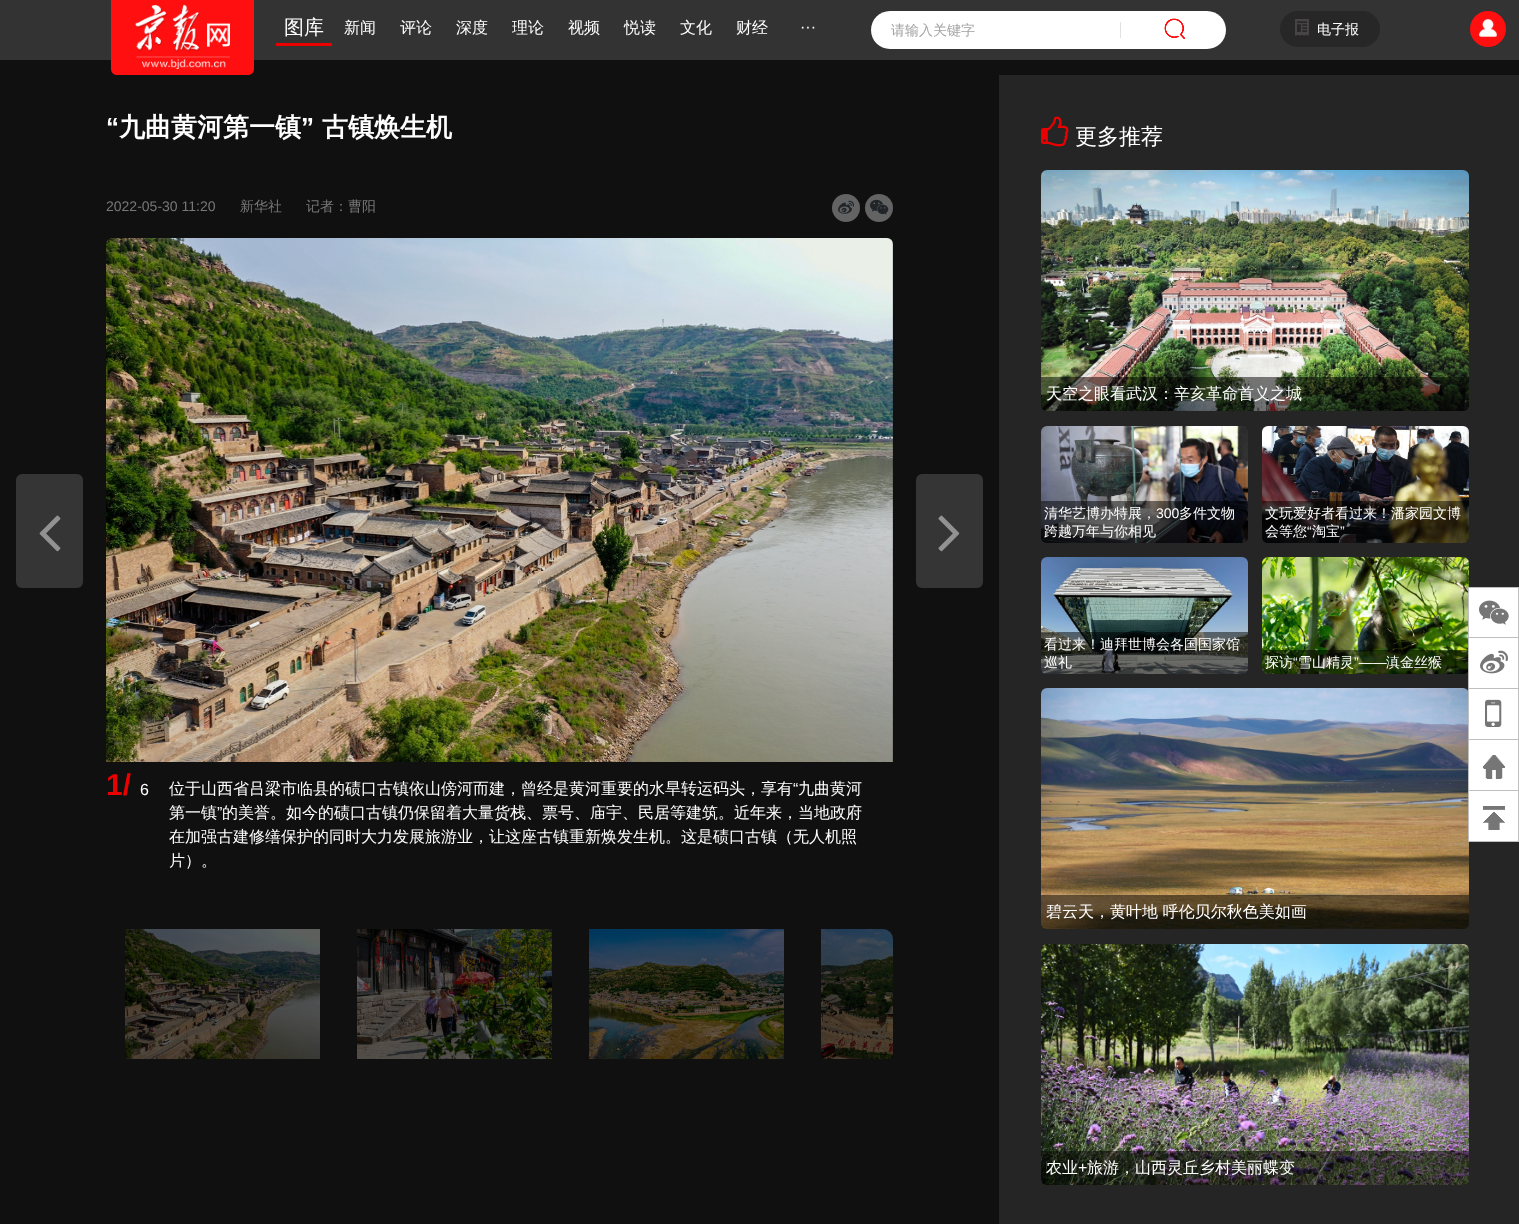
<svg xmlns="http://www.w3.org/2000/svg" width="1519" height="1224">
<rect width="100%" height="100%" fill="#101010"/>
<rect width="1519" height="60" fill="#333"/>
<path d="M111 0h143v69c0 3.5-2.5 6-6 6h-131c-3.5 0-6-2.5-6-6z" fill="#ff0f0f"/>
<image x="135" y="5" width="95" height="64" href="media/1.png"/>
<rect x="276" y="43" width="56" height="3" fill="#eb0000"/>
<text x="284" y="34" style="font-family:WenQuanYi Zen Hei;font-size:20px;font-weight:500;fill:#fff">图库</text>
<text x="344" y="33" style="font-family:WenQuanYi Zen Hei;font-size:16px;font-weight:500;fill:#fff">新闻</text>
<text x="400" y="33" style="font-family:WenQuanYi Zen Hei;font-size:16px;font-weight:500;fill:#fff">评论</text>
<text x="456" y="33" style="font-family:WenQuanYi Zen Hei;font-size:16px;font-weight:500;fill:#fff">深度</text>
<text x="512" y="33" style="font-family:WenQuanYi Zen Hei;font-size:16px;font-weight:500;fill:#fff">理论</text>
<text x="568" y="33" style="font-family:WenQuanYi Zen Hei;font-size:16px;font-weight:500;fill:#fff">视频</text>
<text x="624" y="33" style="font-family:WenQuanYi Zen Hei;font-size:16px;font-weight:500;fill:#fff">悦读</text>
<text x="680" y="33" style="font-family:WenQuanYi Zen Hei;font-size:16px;font-weight:500;fill:#fff">文化</text>
<text x="736" y="33" style="font-family:WenQuanYi Zen Hei;font-size:16px;font-weight:500;fill:#fff">财经</text>
<text x="800" y="32" style="font-family:Liberation Sans;font-size:16px;fill:#fff">···</text>
<path d="M890 11h230v38h-230c-10.5 0-19-8.5-19-19c0-10.5 8.5-19 19-19z" fill="#fff"/>
<text x="891" y="35" style="font-family:WenQuanYi Zen Hei;font-size:14px;font-weight:500;fill:#a2a2a2">请输入关键字</text>
<path d="M1120 11h87c10.5 0 19 8.5 19 19c0 10.5-8.5 19-19 19h-87z" fill="#fff"/>
<rect x="1120" y="22" width="1" height="16" fill="#e0e0e0"/>
<image x="1164" y="18" width="21" height="21" href="media/2.png"/>
<rect x="1280" y="11" width="100" height="36" rx="18" fill="#272727"/>
<image x="1295" y="19" width="14" height="17" href="media/3.png"/>
<text x="1317" y="34" style="font-family:WenQuanYi Zen Hei;font-size:14px;font-weight:500;fill:#fff">电子报</text>
<circle cx="1488" cy="29" r="18" fill="#ff0f0f"/>
<image x="1479" y="19" width="18" height="18" href="media/4.png"/>
<text x="106" y="136" style="font-family:Liberation Sans;font-size:26px;font-weight:bold;fill:#fff">“</text>
<text x="119" y="136" style="font-family:WenQuanYi Zen Hei;font-size:26px;font-weight:bold;fill:#fff">九曲黄河第一镇</text>
<text x="301" y="136" style="font-family:Liberation Sans;font-size:26px;font-weight:bold;fill:#fff">”</text>
<text x="322" y="136" style="font-family:WenQuanYi Zen Hei;font-size:26px;font-weight:bold;fill:#fff">古镇焕生机</text>
<text x="106" y="211" style="font-family:Liberation Sans;font-size:14px;fill:#787878">2022-05-30 11:20</text>
<text x="240" y="211" style="font-family:WenQuanYi Zen Hei;font-size:14px;font-weight:500;fill:#787878">新华社</text>
<text x="306" y="211" style="font-family:WenQuanYi Zen Hei;font-size:14px;font-weight:500;fill:#787878">记者：曹阳</text>
<circle cx="846" cy="208" r="14" fill="#636363"/>
<image x="838" y="200" width="16" height="14" href="media/5.png"/>
<circle cx="879" cy="208" r="14" fill="#636363"/>
<image x="870" y="199" width="19" height="16" href="media/6.png"/>
<rect x="16" y="474" width="67" height="114" rx="6" fill="#353535"/>
<image x="39" y="515" width="22" height="37" href="media/7.png"/>
<rect x="916" y="474" width="67" height="114" rx="6" fill="#353535"/>
<image x="938" y="515" width="22" height="37" href="media/8.png"/>
<image x="106" y="238" width="787" height="524" href="media/9.png"/>
<text x="106" y="795" style="font-family:Liberation Sans;font-size:30px;font-weight:bold;fill:#eb0000">1/</text>
<text x="140" y="795" style="font-family:Liberation Sans;font-size:16px;fill:#fff">6</text>
<text x="169" y="794" style="font-family:WenQuanYi Zen Hei;font-size:16px;font-weight:500;fill:#fff">位于山西省吕梁市临县的碛口古镇依山傍河而建，曾经是黄河重要的水旱转运码头，享有</text>
<text x="793" y="794" style="font-family:Liberation Sans;font-size:16px;fill:#fff">“</text>
<text x="798" y="794" style="font-family:WenQuanYi Zen Hei;font-size:16px;font-weight:500;fill:#fff">九曲黄河</text>
<text x="169" y="818" style="font-family:WenQuanYi Zen Hei;font-size:16px;font-weight:500;fill:#fff">第一镇</text>
<text x="217" y="818" style="font-family:Liberation Sans;font-size:16px;fill:#fff">”</text>
<text x="222" y="818" style="font-family:WenQuanYi Zen Hei;font-size:16px;font-weight:500;fill:#fff">的美誉。如今的碛口古镇仍保留着大量货栈、票号、庙宇、民居等建筑。近年来，当地政府</text>
<text x="169" y="842" style="font-family:WenQuanYi Zen Hei;font-size:16px;font-weight:500;fill:#fff">在加强古建修缮保护的同时大力发展旅游业，让这座古镇重新焕发生机。这是碛口古镇（无人机照</text>
<text x="169" y="866" style="font-family:WenQuanYi Zen Hei;font-size:16px;font-weight:500;fill:#fff">片）。</text>
<image x="125" y="929" width="195" height="130" href="media/10.png"/>
<image x="357" y="929" width="195" height="130" href="media/11.png"/>
<image x="589" y="929" width="195" height="130" href="media/12.png"/>
<image x="821" y="929" width="72" height="130" href="media/13.png"/>
<rect x="999" y="75" width="520" height="1149" fill="#252525"/>
<image x="1041" y="116" width="28" height="31" href="media/14.png"/>
<text x="1075" y="144" style="font-family:WenQuanYi Zen Hei;font-size:22px;font-weight:500;fill:#fff">更多推荐</text>
<image x="1041" y="170" width="428" height="241" href="media/15.png"/>
<path d="M1041 377h428v28c0 3.5-2.5 6-6 6h-416c-3.5 0-6-2.5-6-6z" fill="#00000080"/>
<text x="1046" y="399" style="font-family:WenQuanYi Zen Hei;font-size:16px;font-weight:500;fill:#fff">天空之眼看武汉：辛亥革命首义之城</text>
<image x="1041" y="426" width="207" height="117" href="media/16.png"/>
<path d="M1041 501h207v36c0 3.5-2.5 6-6 6h-195c-3.5 0-6-2.5-6-6z" fill="#00000080"/>
<text x="1044" y="518" style="font-family:WenQuanYi Zen Hei;font-size:14px;font-weight:500;fill:#fff">清华艺博办特展，</text>
<text x="1156" y="518" style="font-family:Liberation Sans;font-size:14px;fill:#fff">300</text>
<text x="1179" y="518" style="font-family:WenQuanYi Zen Hei;font-size:14px;font-weight:500;fill:#fff">多件文物</text>
<text x="1044" y="536" style="font-family:WenQuanYi Zen Hei;font-size:14px;font-weight:500;fill:#fff">跨越万年与你相见</text>
<image x="1262" y="426" width="207" height="117" href="media/17.png"/>
<path d="M1262 501h207v36c0 3.5-2.5 6-6 6h-195c-3.5 0-6-2.5-6-6z" fill="#00000080"/>
<text x="1265" y="518" style="font-family:WenQuanYi Zen Hei;font-size:14px;font-weight:500;fill:#fff">文玩爱好者看过来！潘家园文博</text>
<text x="1265" y="536" style="font-family:WenQuanYi Zen Hei;font-size:14px;font-weight:500;fill:#fff">会等您</text>
<text x="1307" y="536" style="font-family:Liberation Sans;font-size:14px;fill:#fff">“</text>
<text x="1312" y="536" style="font-family:WenQuanYi Zen Hei;font-size:14px;font-weight:500;fill:#fff">淘宝</text>
<text x="1340" y="536" style="font-family:Liberation Sans;font-size:14px;fill:#fff">”</text>
<image x="1041" y="557" width="207" height="117" href="media/18.png"/>
<path d="M1041 632h207v36c0 3.5-2.5 6-6 6h-195c-3.5 0-6-2.5-6-6z" fill="#00000080"/>
<text x="1044" y="649" style="font-family:WenQuanYi Zen Hei;font-size:14px;font-weight:500;fill:#fff">看过来！迪拜世博会各国国家馆</text>
<text x="1044" y="667" style="font-family:WenQuanYi Zen Hei;font-size:14px;font-weight:500;fill:#fff">巡礼</text>
<image x="1262" y="557" width="207" height="117" href="media/19.png"/>
<path d="M1262 650h207v18c0 3.5-2.5 6-6 6h-195c-3.5 0-6-2.5-6-6z" fill="#00000080"/>
<text x="1265" y="667" style="font-family:WenQuanYi Zen Hei;font-size:14px;font-weight:500;fill:#fff">探访</text>
<text x="1293" y="667" style="font-family:Liberation Sans;font-size:14px;fill:#fff">“</text>
<text x="1298" y="667" style="font-family:WenQuanYi Zen Hei;font-size:14px;font-weight:500;fill:#fff">雪山精灵</text>
<text x="1354" y="667" style="font-family:Liberation Sans;font-size:14px;fill:#fff">”——</text>
<text x="1386" y="667" style="font-family:WenQuanYi Zen Hei;font-size:14px;font-weight:500;fill:#fff">滇金丝猴</text>
<image x="1041" y="688" width="428" height="241" href="media/20.png"/>
<path d="M1041 895h428v28c0 3.5-2.5 6-6 6h-416c-3.5 0-6-2.5-6-6z" fill="#00000080"/>
<text x="1046" y="917" style="font-family:WenQuanYi Zen Hei;font-size:16px;font-weight:500;fill:#fff">碧云天，黄叶地 呼伦贝尔秋色美如画</text>
<image x="1041" y="944" width="428" height="241" href="media/21.png"/>
<path d="M1041 1151h428v28c0 3.5-2.5 6-6 6h-416c-3.5 0-6-2.5-6-6z" fill="#00000080"/>
<text x="1046" y="1173" style="font-family:WenQuanYi Zen Hei;font-size:16px;font-weight:500;fill:#fff">农业</text>
<text x="1078" y="1173" style="font-family:Liberation Sans;font-size:16px;fill:#fff">+</text>
<text x="1087" y="1173" style="font-family:WenQuanYi Zen Hei;font-size:16px;font-weight:500;fill:#fff">旅游，山西灵丘乡村美丽蝶变</text>
<rect x="1468.5" y="587.5" width="50" height="50" fill="#fff" stroke="#bfbfbf"/>
<image x="1479" y="600" width="30" height="25" href="media/22.png"/>
<rect x="1469" y="638" width="49" height="50" fill="#fff"/>
<rect x="1518" y="638" width="1" height="204" fill="#bfbfbf"/>
<rect x="1468" y="688" width="51" height="1" fill="#bfbfbf"/>
<rect x="1468" y="638" width="1" height="51" fill="#bfbfbf"/>
<image x="1480" y="650" width="28" height="24" href="media/23.png"/>
<rect x="1469" y="689" width="49" height="50" fill="#fff"/>
<rect x="1468" y="739" width="51" height="1" fill="#bfbfbf"/>
<rect x="1468" y="689" width="1" height="51" fill="#bfbfbf"/>
<image x="1485" y="699" width="17" height="28" href="media/24.png"/>
<rect x="1469" y="740" width="49" height="50" fill="#fff"/>
<rect x="1468" y="790" width="51" height="1" fill="#bfbfbf"/>
<rect x="1468" y="740" width="1" height="51" fill="#bfbfbf"/>
<image x="1483" y="755" width="22" height="24" href="media/25.png"/>
<rect x="1469" y="791" width="49" height="50" fill="#fff"/>
<rect x="1468" y="841" width="51" height="1" fill="#bfbfbf"/>
<rect x="1468" y="791" width="1" height="51" fill="#bfbfbf"/>
<image x="1483" y="806" width="22" height="24" href="media/26.png"/>
</svg>
